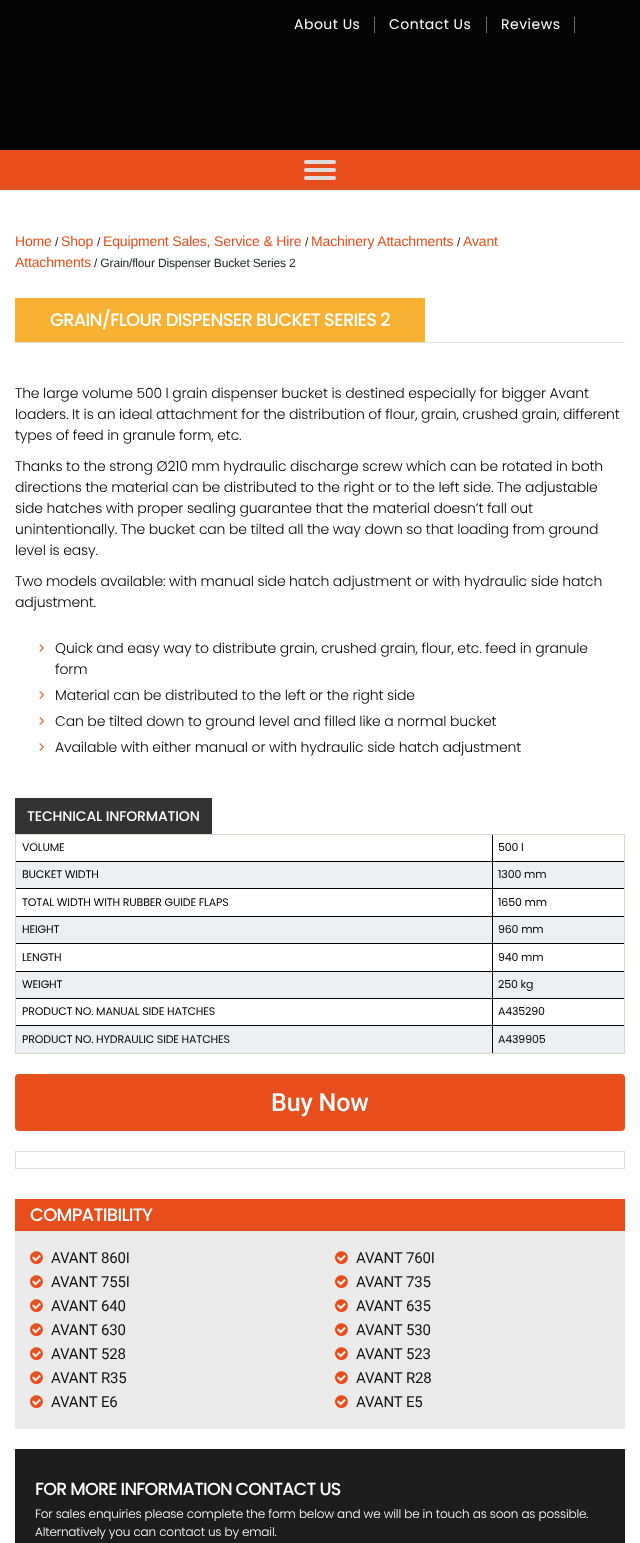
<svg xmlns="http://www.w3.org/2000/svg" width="640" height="1543">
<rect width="100%" height="100%" fill="#fff"/>
<rect width="640" height="150" fill="#040404"/>
<rect x="374" y="17" width="1" height="16" fill="#6a6a6a"/>
<text x="294" y="29" style="font-family:Poppins;font-size:14px;letter-spacing:0.5px;fill:#fff">About Us</text>
<rect x="486" y="17" width="1" height="16" fill="#6a6a6a"/>
<text x="389" y="29" style="font-family:Poppins;font-size:14px;letter-spacing:0.5px;fill:#fff">Contact Us</text>
<rect x="574" y="17" width="1" height="16" fill="#6a6a6a"/>
<text x="501" y="29" style="font-family:Poppins;font-size:14px;letter-spacing:0.5px;fill:#fff">Reviews</text>
<rect y="150" width="640" height="40" fill="#e84e1b"/>
<rect x="304" y="160" width="32" height="4" rx="2" fill="#ddd"/>
<rect x="304" y="168" width="32" height="4" rx="2" fill="#ddd"/>
<rect x="304" y="176" width="32" height="4" rx="2" fill="#ddd"/>
<text x="15" y="246" style="font-family:Liberation Sans;font-size:14px;letter-spacing:-0.15px;fill:#e84e1b">Home</text>
<text x="55" y="246" style="font-family:Liberation Sans;font-size:12px;letter-spacing:-0.15px;fill:#212529">/</text>
<text x="61" y="246" style="font-family:Liberation Sans;font-size:14px;letter-spacing:-0.15px;fill:#e84e1b">Shop</text>
<text x="97" y="246" style="font-family:Liberation Sans;font-size:12px;letter-spacing:-0.15px;fill:#212529">/</text>
<text x="103" y="246" style="font-family:Liberation Sans;font-size:14px;letter-spacing:-0.15px;fill:#e84e1b">Equipment Sales, Service &amp; Hire</text>
<text x="305" y="246" style="font-family:Liberation Sans;font-size:12px;letter-spacing:-0.15px;fill:#212529">/</text>
<text x="311" y="246" style="font-family:Liberation Sans;font-size:14px;letter-spacing:-0.15px;fill:#e84e1b">Machinery Attachments</text>
<text x="457" y="246" style="font-family:Liberation Sans;font-size:12px;letter-spacing:-0.15px;fill:#212529">/</text>
<text x="463" y="246" style="font-family:Liberation Sans;font-size:14px;letter-spacing:-0.15px;fill:#e84e1b">Avant</text>
<text x="15" y="267" style="font-family:Liberation Sans;font-size:14px;letter-spacing:-0.15px;fill:#e84e1b">Attachments</text>
<text x="94" y="267" style="font-family:Liberation Sans;font-size:12px;letter-spacing:-0.15px;fill:#212529">/ Grain/flour Dispenser Bucket Series 2</text>
<rect x="15" y="342" width="610" height="1" fill="#e2e2e2"/>
<rect x="15" y="298" width="410" height="44" fill="#f8b133"/>
<text x="50" y="326" style="font-family:Poppins;font-size:18px;font-weight:500;letter-spacing:-0.75px;fill:#fff">GRAIN/FLOUR DISPENSER BUCKET SERIES 2</text>
<text x="15" y="398" style="font-family:Poppins;font-size:14px;font-weight:300;letter-spacing:-0.15px;fill:#000">The large volume 500 l grain dispenser bucket is destined especially for bigger Avant</text>
<text x="15" y="419" style="font-family:Poppins;font-size:14px;font-weight:300;letter-spacing:-0.15px;fill:#000">loaders. It is an ideal attachment for the distribution of flour, grain, crushed grain, different</text>
<text x="15" y="440" style="font-family:Poppins;font-size:14px;font-weight:300;letter-spacing:-0.15px;fill:#000">types of feed in granule form, etc.</text>
<text x="15" y="471" style="font-family:Poppins;font-size:14px;font-weight:300;letter-spacing:-0.15px;fill:#000">Thanks to the strong Ø210 mm hydraulic discharge screw which can be rotated in both</text>
<text x="15" y="492" style="font-family:Poppins;font-size:14px;font-weight:300;letter-spacing:-0.15px;fill:#000">directions the material can be distributed to the right or to the left side. The adjustable</text>
<text x="15" y="513" style="font-family:Poppins;font-size:14px;font-weight:300;letter-spacing:-0.15px;fill:#000">side hatches with proper sealing guarantee that the material doesn’t fall out</text>
<text x="15" y="534" style="font-family:Poppins;font-size:14px;font-weight:300;letter-spacing:-0.15px;fill:#000">unintentionally. The bucket can be tilted all the way down so that loading from ground</text>
<text x="15" y="555" style="font-family:Poppins;font-size:14px;font-weight:300;letter-spacing:-0.15px;fill:#000">level is easy.</text>
<text x="15" y="586" style="font-family:Poppins;font-size:14px;font-weight:300;letter-spacing:-0.15px;fill:#000">Two models available: with manual side hatch adjustment or with hydraulic side hatch</text>
<text x="15" y="607" style="font-family:Poppins;font-size:14px;font-weight:300;letter-spacing:-0.15px;fill:#000">adjustment.</text>
<image x="39" y="644" width="5" height="8" href="media/1.png"/>
<text x="55" y="653" style="font-family:Poppins;font-size:14px;font-weight:300;letter-spacing:-0.15px;fill:#000">Quick and easy way to distribute grain, crushed grain, flour, etc. feed in granule</text>
<text x="55" y="674" style="font-family:Poppins;font-size:14px;font-weight:300;letter-spacing:-0.15px;fill:#000">form</text>
<image x="39" y="691" width="5" height="8" href="media/1.png"/>
<text x="55" y="700" style="font-family:Poppins;font-size:14px;font-weight:300;letter-spacing:-0.15px;fill:#000">Material can be distributed to the left or the right side</text>
<image x="39" y="717" width="5" height="8" href="media/1.png"/>
<text x="55" y="726" style="font-family:Poppins;font-size:14px;font-weight:300;letter-spacing:-0.15px;fill:#000">Can be tilted down to ground level and filled like a normal bucket</text>
<image x="39" y="743" width="5" height="8" href="media/1.png"/>
<text x="55" y="752" style="font-family:Poppins;font-size:14px;font-weight:300;letter-spacing:-0.15px;fill:#000">Available with either manual or with hydraulic side hatch adjustment</text>
<rect x="15" y="798" width="197" height="36" fill="#333"/>
<text x="27" y="821" style="font-family:Poppins;font-size:14px;font-weight:500;letter-spacing:-0.15px;fill:#fff">TECHNICAL INFORMATION</text>
<rect x="15" y="834" width="610" height="1" fill="#dcd7ca"/>
<rect x="624" y="834" width="1" height="220" fill="#dcd7ca"/>
<rect x="15" y="1053" width="610" height="1" fill="#dcd7ca"/>
<rect x="15" y="834" width="1" height="220" fill="#dcd7ca"/>
<text x="22" y="851" style="font-family:Poppins;font-size:11px;letter-spacing:-0.15px;fill:#000">VOLUME</text>
<rect x="492" y="861" width="132" height="1" fill="#000"/>
<rect x="16" y="862" width="608" height="26" fill="#edf0f3"/>
<rect x="492" y="888" width="132" height="1" fill="#000"/>
<rect x="492" y="916" width="132" height="1" fill="#000"/>
<rect x="16" y="917" width="608" height="26" fill="#edf0f3"/>
<rect x="492" y="943" width="132" height="1" fill="#000"/>
<rect x="492" y="971" width="132" height="1" fill="#000"/>
<rect x="16" y="972" width="608" height="26" fill="#edf0f3"/>
<rect x="492" y="998" width="132" height="1" fill="#000"/>
<rect x="492" y="1025" width="132" height="1" fill="#000"/>
<rect x="16" y="1026" width="608" height="27" fill="#edf0f3"/>
<rect x="492" y="1025" width="1" height="28" fill="#000"/>
<rect x="16" y="1025" width="477" height="1" fill="#000"/>
<rect x="492" y="998" width="1" height="28" fill="#000"/>
<rect x="16" y="998" width="477" height="1" fill="#000"/>
<rect x="492" y="971" width="1" height="28" fill="#000"/>
<rect x="16" y="971" width="477" height="1" fill="#000"/>
<rect x="492" y="943" width="1" height="29" fill="#000"/>
<rect x="16" y="943" width="477" height="1" fill="#000"/>
<rect x="492" y="916" width="1" height="28" fill="#000"/>
<rect x="16" y="916" width="477" height="1" fill="#000"/>
<rect x="492" y="888" width="1" height="29" fill="#000"/>
<rect x="16" y="888" width="477" height="1" fill="#000"/>
<rect x="492" y="861" width="1" height="28" fill="#000"/>
<rect x="16" y="861" width="477" height="1" fill="#000"/>
<rect x="492" y="835" width="1" height="27" fill="#000"/>
<text x="498" y="851" style="font-family:Poppins;font-size:11px;letter-spacing:-0.15px;fill:#000">500 l</text>
<text x="22" y="878" style="font-family:Poppins;font-size:11px;letter-spacing:-0.15px;fill:#000">BUCKET WIDTH</text>
<text x="498" y="878" style="font-family:Poppins;font-size:11px;letter-spacing:-0.15px;fill:#000">1300 mm</text>
<text x="22" y="906" style="font-family:Poppins;font-size:11px;letter-spacing:-0.15px;fill:#000">TOTAL WIDTH WITH RUBBER GUIDE FLAPS</text>
<text x="498" y="906" style="font-family:Poppins;font-size:11px;letter-spacing:-0.15px;fill:#000">1650 mm</text>
<text x="22" y="933" style="font-family:Poppins;font-size:11px;letter-spacing:-0.15px;fill:#000">HEIGHT</text>
<text x="498" y="933" style="font-family:Poppins;font-size:11px;letter-spacing:-0.15px;fill:#000">960 mm</text>
<text x="22" y="961" style="font-family:Poppins;font-size:11px;letter-spacing:-0.15px;fill:#000">LENGTH</text>
<text x="498" y="961" style="font-family:Poppins;font-size:11px;letter-spacing:-0.15px;fill:#000">940 mm</text>
<text x="22" y="988" style="font-family:Poppins;font-size:11px;letter-spacing:-0.15px;fill:#000">WEIGHT</text>
<text x="498" y="988" style="font-family:Poppins;font-size:11px;letter-spacing:-0.15px;fill:#000">250 kg</text>
<text x="22" y="1015" style="font-family:Poppins;font-size:11px;letter-spacing:-0.15px;fill:#000">PRODUCT NO. MANUAL SIDE HATCHES</text>
<text x="498" y="1015" style="font-family:Poppins;font-size:11px;letter-spacing:-0.15px;fill:#000">A435290</text>
<text x="22" y="1043" style="font-family:Poppins;font-size:11px;letter-spacing:-0.15px;fill:#000">PRODUCT NO. HYDRAULIC SIDE HATCHES</text>
<text x="498" y="1043" style="font-family:Poppins;font-size:11px;letter-spacing:-0.15px;fill:#000">A439905</text>
<rect x="15" y="1074" width="610" height="57" rx="4" fill="#e84e1b"/>
<text x="271" y="1111" style="font-family:Roboto;font-size:25px;font-weight:500;letter-spacing:-0.15px;fill:#fff">Buy Now</text>
<rect x="15.5" y="1151.5" width="609" height="17" fill="none" stroke="#ddd"/>
<rect x="15" y="1231" width="610" height="198" fill="#eaeaea"/>
<rect x="15" y="1199" width="610" height="32" fill="#e84e1b"/>
<text x="30" y="1221" style="font-family:Poppins;font-size:18px;font-weight:500;letter-spacing:-0.75px;fill:#fff">COMPATIBILITY</text>
<image x="30" y="1251" width="13" height="14" href="media/2.png"/>
<text x="51" y="1263" style="font-family:Roboto;font-size:15px;letter-spacing:-0.15px;fill:#111">AVANT 860I</text>
<image x="335" y="1251" width="13" height="14" href="media/2.png"/>
<text x="356" y="1263" style="font-family:Roboto;font-size:15px;letter-spacing:-0.15px;fill:#111">AVANT 760I</text>
<image x="30" y="1275" width="13" height="14" href="media/2.png"/>
<text x="51" y="1287" style="font-family:Roboto;font-size:15px;letter-spacing:-0.15px;fill:#111">AVANT 755I</text>
<image x="335" y="1275" width="13" height="14" href="media/2.png"/>
<text x="356" y="1287" style="font-family:Roboto;font-size:15px;letter-spacing:-0.15px;fill:#111">AVANT 735</text>
<image x="30" y="1299" width="13" height="14" href="media/2.png"/>
<text x="51" y="1311" style="font-family:Roboto;font-size:15px;letter-spacing:-0.15px;fill:#111">AVANT 640</text>
<image x="335" y="1299" width="13" height="14" href="media/2.png"/>
<text x="356" y="1311" style="font-family:Roboto;font-size:15px;letter-spacing:-0.15px;fill:#111">AVANT 635</text>
<image x="30" y="1323" width="13" height="14" href="media/2.png"/>
<text x="51" y="1335" style="font-family:Roboto;font-size:15px;letter-spacing:-0.15px;fill:#111">AVANT 630</text>
<image x="335" y="1323" width="13" height="14" href="media/2.png"/>
<text x="356" y="1335" style="font-family:Roboto;font-size:15px;letter-spacing:-0.15px;fill:#111">AVANT 530</text>
<image x="30" y="1347" width="13" height="14" href="media/2.png"/>
<text x="51" y="1359" style="font-family:Roboto;font-size:15px;letter-spacing:-0.15px;fill:#111">AVANT 528</text>
<image x="335" y="1347" width="13" height="14" href="media/2.png"/>
<text x="356" y="1359" style="font-family:Roboto;font-size:15px;letter-spacing:-0.15px;fill:#111">AVANT 523</text>
<image x="30" y="1371" width="13" height="14" href="media/2.png"/>
<text x="51" y="1383" style="font-family:Roboto;font-size:15px;letter-spacing:-0.15px;fill:#111">AVANT R35</text>
<image x="335" y="1371" width="13" height="14" href="media/2.png"/>
<text x="356" y="1383" style="font-family:Roboto;font-size:15px;letter-spacing:-0.15px;fill:#111">AVANT R28</text>
<image x="30" y="1395" width="13" height="14" href="media/2.png"/>
<text x="51" y="1407" style="font-family:Roboto;font-size:15px;letter-spacing:-0.15px;fill:#111">AVANT E6</text>
<image x="335" y="1395" width="13" height="14" href="media/2.png"/>
<text x="356" y="1407" style="font-family:Roboto;font-size:15px;letter-spacing:-0.15px;fill:#111">AVANT E5</text>
<rect x="15" y="1449" width="610" height="94" fill="#1d1d1d"/>
<text x="35" y="1495" style="font-family:Poppins;font-size:17.5px;font-weight:500;letter-spacing:-0.75px;fill:#fff">FOR MORE INFORMATION CONTACT US</text>
<text x="35" y="1518" style="font-family:Poppins;font-size:12px;font-weight:300;letter-spacing:-0.15px;fill:#fff">For sales enquiries please complete the form below and we will be in touch as soon as possible.</text>
<text x="35" y="1536" style="font-family:Poppins;font-size:12px;font-weight:300;letter-spacing:-0.15px;fill:#fff">Alternatively you can contact us by email.</text>
</svg>
